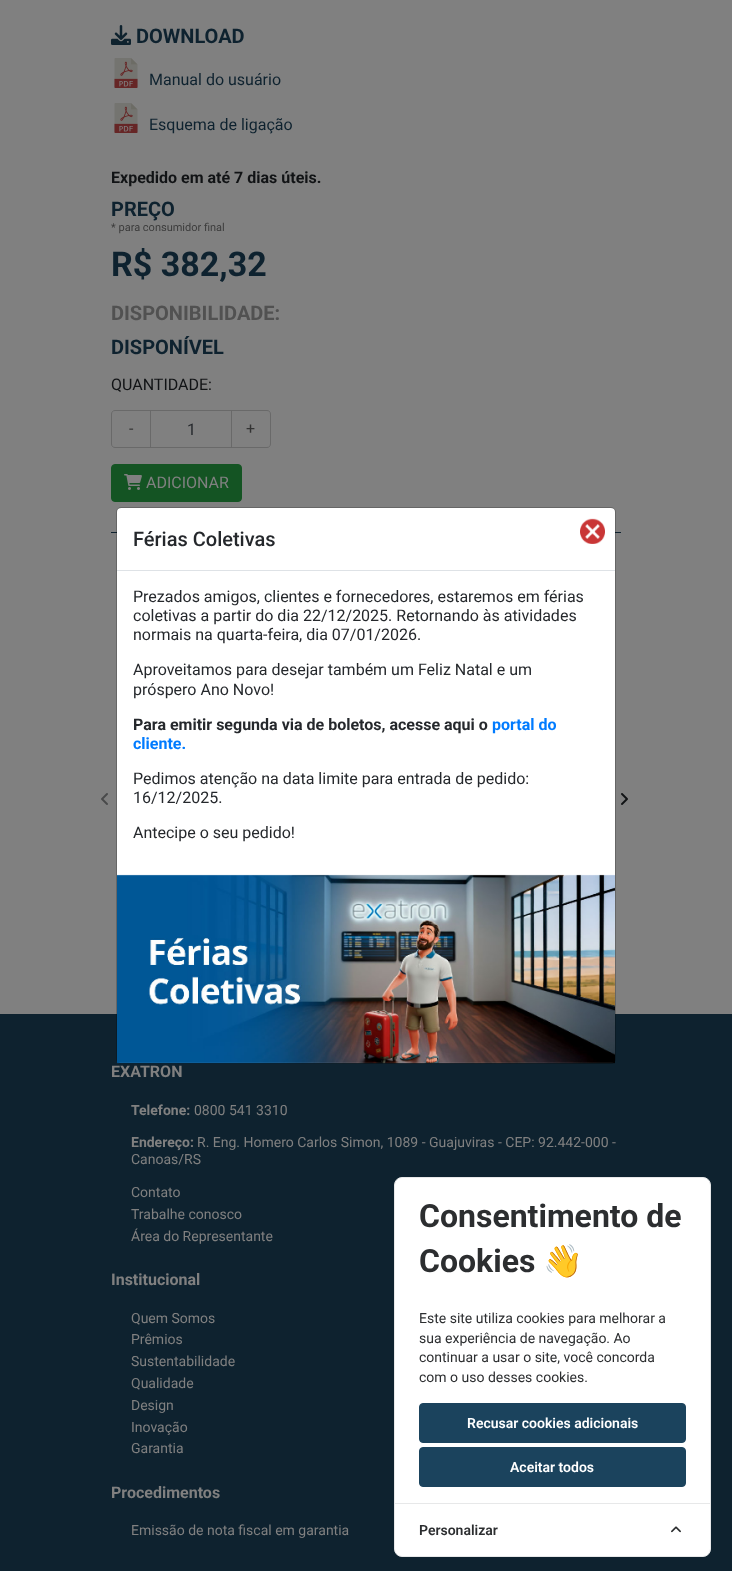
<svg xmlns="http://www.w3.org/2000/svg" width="732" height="1571">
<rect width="100%" height="100%" fill="#808080"/>
<image x="111" y="25" width="20" height="20" href="media/1.png"/>
<text x="136" y="43" style="font-family:Roboto;font-size:20px;font-weight:bold;fill:#0e222f">DOWNLOAD</text>
<image x="114" y="58" width="24" height="30" href="media/2.png"/>
<text x="149" y="85" style="font-family:Roboto;font-size:16px;fill:#0e222f">Manual do usuário</text>
<image x="114" y="103" width="24" height="30" href="media/2.png"/>
<text x="149" y="130" style="font-family:Roboto;font-size:16px;fill:#0e222f">Esquema de ligação</text>
<text x="111" y="183" style="font-family:Roboto;font-size:16px;font-weight:bold;fill:#111315">Expedido em até 7 dias úteis.</text>
<text x="111" y="216" style="font-family:Roboto;font-size:20px;font-weight:bold;fill:#0e222f">PREÇO</text>
<text x="111" y="231" style="font-family:Roboto;font-size:11px;fill:#3c3c3c">* para consumidor final</text>
<text x="111" y="276" style="font-family:Roboto;font-size:34px;font-weight:bold;fill:#0e222f">R$ 382,32</text>
<text x="111" y="320" style="font-family:Roboto;font-size:20px;font-weight:bold;fill:#515151">DISPONIBILIDADE:</text>
<text x="111" y="354" style="font-family:Roboto;font-size:20px;font-weight:bold;fill:#0e222f">DISPONÍVEL</text>
<text x="111" y="390" style="font-family:Roboto;font-size:16px;fill:#111315">QUANTIDADE:</text>
<rect x="150.5" y="410.5" width="81" height="37" fill="none" stroke="#696969"/>
<path d="M115 410.5h35.5v37h-35.5c-2 0-3.5-1.5-3.5-3.5v-30c0-2 1.5-3.5 3.5-3.5z" fill="none" stroke="#696969"/>
<text x="129" y="434" style="font-family:Roboto;font-size:16px;fill:#333">-</text>
<text x="187" y="435" style="font-family:Roboto;font-size:16px;fill:#25282c">1</text>
<path d="M231.5 410.5h35.5c2 0 3.5 1.5 3.5 3.5v30c0 2-1.5 3.5-3.5 3.5h-35.5z" fill="none" stroke="#696969"/>
<text x="246" y="434" style="font-family:Roboto;font-size:16px;fill:#333">+</text>
<rect x="111.5" y="464.5" width="130" height="37" rx="3.5" fill="#145423" stroke="#145423"/>
<image x="124" y="474" width="18" height="16" href="media/3.png"/>
<text x="146" y="488" style="font-family:Roboto;font-size:16px;fill:#808080">ADICIONAR</text>
<rect x="111" y="532" width="510" height="1" fill="#0e222f"/>
<image x="101" y="793" width="7" height="12" href="media/4.png"/>
<image x="621" y="793" width="7" height="12" href="media/5.png"/>
<rect y="1014" width="732" height="557" fill="#0e222f"/>
<text x="111" y="1077" style="font-family:Roboto;font-size:16px;font-weight:bold;fill:#808080">EXATRON</text>
<text x="131" y="1115" style="font-family:Roboto;font-size:14px;font-weight:bold;fill:#808080">Telefone:</text>
<text x="194" y="1115" style="font-family:Roboto;font-size:14px;fill:#808080">0800 541 3310</text>
<text x="131" y="1147" style="font-family:Roboto;font-size:14px;font-weight:bold;fill:#808080">Endereço:</text>
<text x="197" y="1147" style="font-family:Roboto;font-size:14px;fill:#808080">R. Eng. Homero Carlos Simon, 1089 - Guajuviras - CEP: 92.442-000 -</text>
<text x="131" y="1164" style="font-family:Roboto;font-size:14px;fill:#808080">Canoas/RS</text>
<text x="131" y="1197" style="font-family:Roboto;font-size:14px;fill:#808080">Contato</text>
<text x="131" y="1219" style="font-family:Roboto;font-size:14px;fill:#808080">Trabalhe conosco</text>
<text x="131" y="1241" style="font-family:Roboto;font-size:14px;fill:#808080">Área do Representante</text>
<text x="111" y="1285" style="font-family:Roboto;font-size:16px;font-weight:bold;fill:#808080">Institucional</text>
<text x="131" y="1323" style="font-family:Roboto;font-size:14px;fill:#808080">Quem Somos</text>
<text x="131" y="1344" style="font-family:Roboto;font-size:14px;fill:#808080">Prêmios</text>
<text x="131" y="1366" style="font-family:Roboto;font-size:14px;fill:#808080">Sustentabilidade</text>
<text x="131" y="1388" style="font-family:Roboto;font-size:14px;fill:#808080">Qualidade</text>
<text x="131" y="1410" style="font-family:Roboto;font-size:14px;fill:#808080">Design</text>
<text x="131" y="1432" style="font-family:Roboto;font-size:14px;fill:#808080">Inovação</text>
<text x="131" y="1453" style="font-family:Roboto;font-size:14px;fill:#808080">Garantia</text>
<text x="111" y="1498" style="font-family:Roboto;font-size:16px;font-weight:bold;fill:#808080">Procedimentos</text>
<text x="131" y="1535" style="font-family:Roboto;font-size:14px;fill:#808080">Emissão de nota fiscal em garantia</text>
<rect x="117" y="508" width="498" height="555" rx="4" fill="#fff"/>
<rect x="116.5" y="507.5" width="499" height="556" rx="4.5" fill="none" stroke="#00000033"/>
<rect x="117" y="570" width="498" height="1" fill="#dee2e6"/>
<text x="133" y="546" style="font-family:Roboto;font-size:20px;font-weight:500;fill:#25282c">Férias Coletivas</text>
<image x="580" y="518" width="25" height="26" href="media/6.png"/>
<text x="133" y="602" style="font-family:Roboto;font-size:16px;fill:#25282c">Prezados amigos, clientes e fornecedores, estaremos em férias</text>
<text x="133" y="621" style="font-family:Roboto;font-size:16px;fill:#25282c">coletivas a partir do dia 22/12/2025. Retornando às atividades</text>
<text x="133" y="640" style="font-family:Roboto;font-size:16px;fill:#25282c">normais na quarta-feira, dia 07/01/2026.</text>
<text x="133" y="675" style="font-family:Roboto;font-size:16px;fill:#25282c">Aproveitamos para desejar também um Feliz Natal e um</text>
<text x="133" y="695" style="font-family:Roboto;font-size:16px;fill:#25282c">próspero Ano Novo!</text>
<text x="133" y="730" style="font-family:Roboto;font-size:16px;font-weight:bold;fill:#25282c">Para emitir segunda via de boletos, acesse aqui o</text>
<text x="492" y="730" style="font-family:Roboto;font-size:16px;font-weight:bold;fill:#007bff">portal do</text>
<text x="133" y="749" style="font-family:Roboto;font-size:16px;font-weight:bold;fill:#007bff">cliente.</text>
<text x="133" y="784" style="font-family:Roboto;font-size:16px;fill:#25282c">Pedimos atenção na data limite para entrada de pedido:</text>
<text x="133" y="803" style="font-family:Roboto;font-size:16px;fill:#25282c">16/12/2025.</text>
<text x="133" y="838" style="font-family:Roboto;font-size:16px;fill:#25282c">Antecipe o seu pedido!</text>
<image x="117" y="874" width="498" height="190" href="media/7.png"/>
<rect x="394.5" y="1177.5" width="316" height="379" rx="7.5" fill="#fff" stroke="#e7e8e9"/>
<text x="419" y="1227" style="font-family:Roboto;font-size:32px;font-weight:bold;fill:#2c2e30">Consentimento de</text>
<text x="419" y="1272" style="font-family:Roboto;font-size:32px;font-weight:bold;fill:#2c2e30">Cookies</text>
<text x="543" y="1272" style="font-family:Noto Color Emoji;font-size:32px;font-weight:bold;fill:#2c2e30">👋</text>
<text x="419" y="1323" style="font-family:Roboto;font-size:14px;fill:#2c2e30">Este site utiliza cookies para melhorar a</text>
<text x="419" y="1343" style="font-family:Roboto;font-size:14px;fill:#2c2e30">sua experiência de navegação. Ao</text>
<text x="419" y="1362" style="font-family:Roboto;font-size:14px;fill:#2c2e30">continuar a usar o site, você concorda</text>
<text x="419" y="1382" style="font-family:Roboto;font-size:14px;fill:#2c2e30">com o uso desses cookies.</text>
<rect x="419.5" y="1403.5" width="266" height="39" rx="3.5" fill="#1b435d" stroke="#1b435d"/>
<text x="467" y="1428" style="font-family:Roboto;font-size:14px;font-weight:600;fill:#fff">Recusar cookies adicionais</text>
<rect x="419.5" y="1447.5" width="266" height="39" rx="3.5" fill="#1b435d" stroke="#1b435d"/>
<text x="510" y="1472" style="font-family:Roboto;font-size:14px;font-weight:600;fill:#fff">Aceitar todos</text>
<rect x="395" y="1503" width="315" height="1" fill="#e7e8e9"/>
<text x="419" y="1535" style="font-family:Roboto;font-size:14px;font-weight:600;fill:#2c2e30">Personalizar</text>
<image x="671" y="1526" width="10" height="7" href="media/8.png"/>
</svg>
